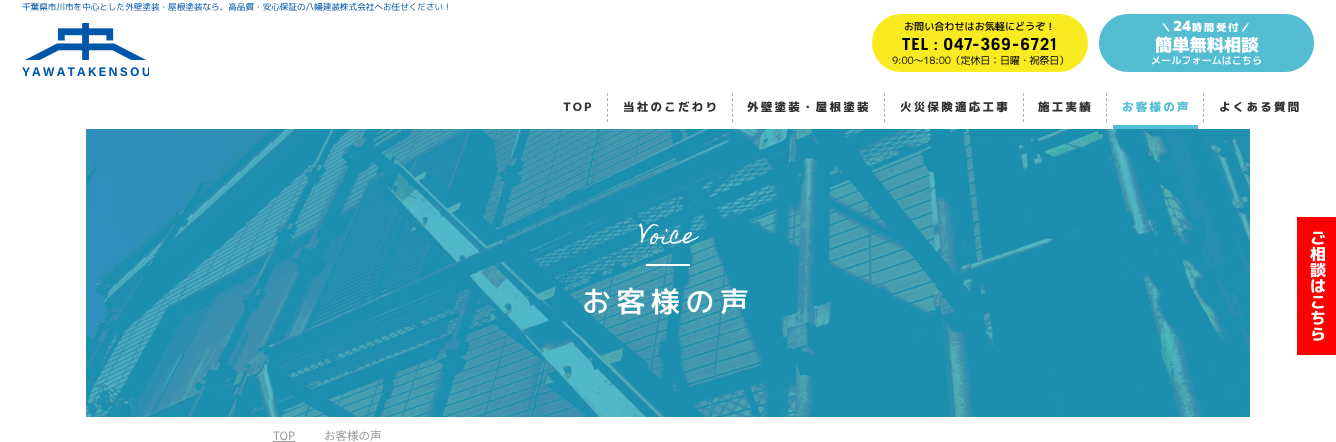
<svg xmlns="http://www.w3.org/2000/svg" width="1336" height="442">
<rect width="100%" height="100%" fill="#fff"/>
<text x="22" y="10" style="font-family:'M PLUS 1p';font-size:8.6px;fill:#0056a8">千葉県市川市を中心とした外壁塗装・屋根塗装なら、高品質・安心保証の八幡建装株式会社へお任せください！</text>
<image x="22" y="23" width="127" height="53" href="media/1.png"/>
<rect x="873" y="15" width="214" height="56" rx="28" fill="#f9eb21" stroke="#f9eb21" stroke-width="2"/>
<text x="904" y="30" style="font-family:'M PLUS 1p';font-size:10.1px;font-weight:500;fill:#000">お問い合わせはお気軽にどうぞ！</text>
<text x="902" y="50" style="font-family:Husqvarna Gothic;font-size:17.25px;font-weight:bold;letter-spacing:1.25px;fill:#000">TEL : 047-369-6721</text>
<text x="892" y="64" style="font-family:'M PLUS 1p';font-size:10.1px;letter-spacing:-0.25px;fill:#000">9:00～18:00（定休日：日曜・祝祭日）</text>
<rect x="1100" y="15" width="213" height="56" rx="28" fill="#54bdd1" stroke="#54bdd1" stroke-width="2"/>
<text x="1161" y="31" style="font-family:'M PLUS 1p';font-size:10.1px;font-weight:800;letter-spacing:2px;fill:#fff">＼</text>
<text x="1173" y="31" style="font-family:'M PLUS 1p';font-size:14px;font-weight:900;fill:#fff">24</text>
<text x="1192" y="31" style="font-family:'M PLUS 1p';font-size:10.1px;font-weight:800;letter-spacing:2px;fill:#fff">時間受付／</text>
<text x="1155" y="51" style="font-family:'M PLUS 1p';font-size:17.25px;font-weight:800;fill:#fff">簡単無料相談</text>
<text x="1151" y="64" style="font-family:'M PLUS 1p';font-size:10.1px;font-weight:500;fill:#fff">メールフォームはこちら</text>
<path d="M607.5 93v29" fill="none" stroke="#b0b0b0" stroke-dasharray="3 2.2"/>
<text x="563" y="111" style="font-family:'M PLUS 1p';font-size:11.5px;font-weight:800;letter-spacing:2.25px;fill:#323232">TOP</text>
<path d="M732.5 93v29" fill="none" stroke="#b0b0b0" stroke-dasharray="3 2.2"/>
<text x="623" y="111" style="font-family:'M PLUS 1p';font-size:11.5px;font-weight:800;letter-spacing:2.25px;fill:#323232">当社のこだわり</text>
<path d="M884.5 93v29" fill="none" stroke="#b0b0b0" stroke-dasharray="3 2.2"/>
<text x="747" y="111" style="font-family:'M PLUS 1p';font-size:11.5px;font-weight:800;letter-spacing:2.25px;fill:#323232">外壁塗装・屋根塗装</text>
<path d="M1023.5 93v29" fill="none" stroke="#b0b0b0" stroke-dasharray="3 2.2"/>
<text x="900" y="111" style="font-family:'M PLUS 1p';font-size:11.5px;font-weight:800;letter-spacing:2.25px;fill:#323232">火災保険適応工事</text>
<path d="M1106.5 93v29" fill="none" stroke="#b0b0b0" stroke-dasharray="3 2.2"/>
<text x="1038" y="111" style="font-family:'M PLUS 1p';font-size:11.5px;font-weight:800;letter-spacing:2.25px;fill:#323232">施工実績</text>
<path d="M1203.5 93v29" fill="none" stroke="#b0b0b0" stroke-dasharray="3 2.2"/>
<text x="1122" y="111" style="font-family:'M PLUS 1p';font-size:11.5px;font-weight:800;letter-spacing:2.25px;fill:#54bfd3">お客様の声</text>
<rect x="1113" y="125" width="85" height="4" fill="#54bfd3"/>
<text x="1219" y="111" style="font-family:'M PLUS 1p';font-size:11.5px;font-weight:800;letter-spacing:2.25px;fill:#323232">よくある質問</text>
<image x="86" y="129" width="1164" height="288" href="media/2.png"/>
<text x="639" y="243" style="font-family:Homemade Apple;font-size:21.5px;fill:#fff">Voice</text>
<rect x="646" y="264" width="44" height="2" fill="#fff"/>
<text x="582" y="312" style="font-family:'M PLUS 1p';font-size:28.75px;font-weight:500;letter-spacing:5.75px;fill:#fff">お客様の声</text>
<image x="1297" y="217" width="39" height="138" href="media/3.png"/>
<text x="273" y="440" style="font-family:Noto Sans JP;font-size:11.5px;fill:#999">TOP</text>
<rect x="273" y="441" width="22" height="1" fill="#999"/>
<text x="324" y="440" style="font-family:Noto Sans JP;font-size:11.5px;fill:#999">お客様の声</text>
</svg>
